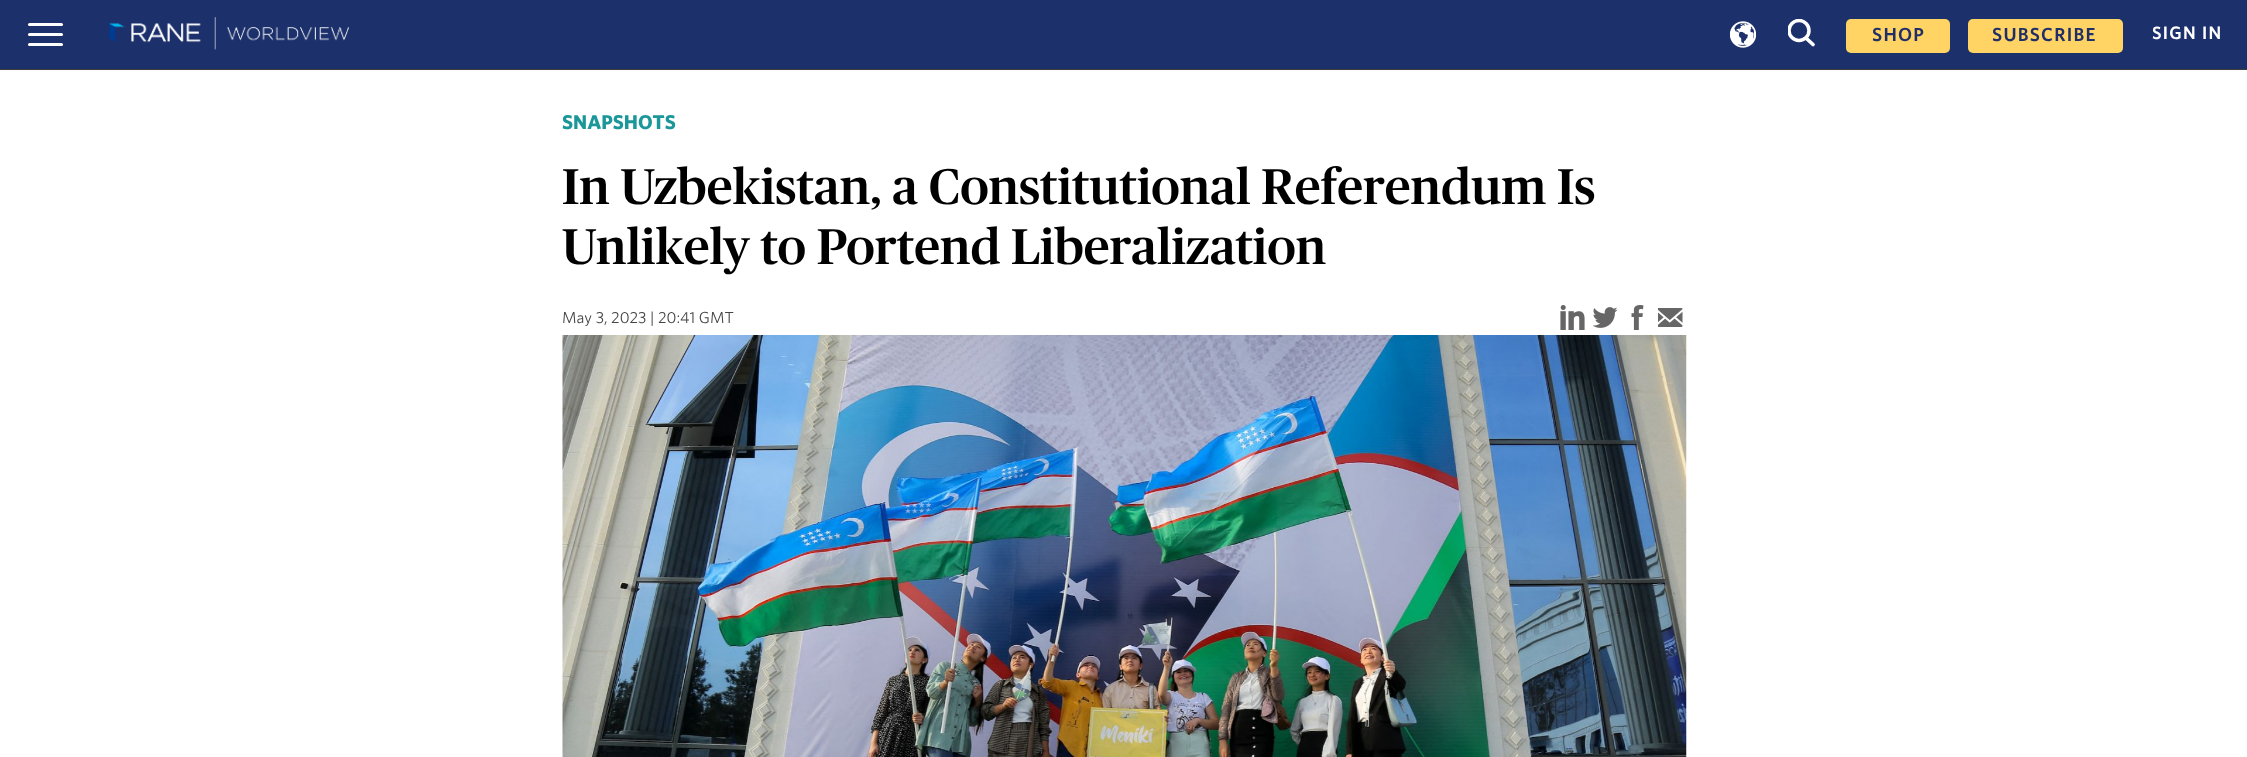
<svg xmlns="http://www.w3.org/2000/svg" width="2247" height="757">
<defs>
<clipPath id="clip1"><rect x="1788" y="19" width="27" height="27"/></clipPath>
</defs>
<rect width="100%" height="100%" fill="#fff"/>
<rect width="2247" height="69" fill="#1c306b"/>
<rect y="69" width="2247" height="1" fill="#3d3d3d"/>
<rect x="28" y="33" width="35" height="3" rx="1.5" fill="#fff"/>
<rect x="28" y="23" width="35" height="3" rx="1.5" fill="#fff"/>
<rect x="28" y="43" width="35" height="3" rx="1.5" fill="#fff"/>
<image x="108" y="17" width="241" height="33" href="media/1.png"/>
<image x="1730" y="21" width="26" height="27" href="media/2.png"/>
<path d="M1806.5 38.5l6.5 6" fill="none" stroke="#fff" stroke-width="3.7" stroke-linecap="round" stroke-linejoin="round"/>
<g clip-path="url(#clip1)">
<circle cx="1799" cy="30.5" r="10" fill="none" stroke="#fff" stroke-width="3.5"/>
</g>
<rect x="1846" y="19" width="104" height="34" rx="5" fill="#ffd464"/>
<text x="1872" y="41" style="font-family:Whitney;font-size:19px;font-weight:600;letter-spacing:1.25px;fill:#203067">SHOP</text>
<rect x="1968" y="19" width="155" height="34" rx="5" fill="#ffd464"/>
<text x="1992" y="41" style="font-family:Whitney;font-size:19px;font-weight:600;letter-spacing:1.25px;fill:#203067">SUBSCRIBE</text>
<text x="2152" y="39" style="font-family:Whitney;font-size:18px;font-weight:600;letter-spacing:1.25px;fill:#fff">SIGN IN</text>
<text x="562" y="129" style="font-family:Whitney;font-size:20px;font-weight:bold;fill:#1b9699">SNAPSHOTS</text>
<text x="562" y="204" style="font-family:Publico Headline;font-size:50px;font-weight:500;fill:#000">In Uzbekistan, a Constitutional Referendum Is</text>
<text x="562" y="264" style="font-family:Publico Headline;font-size:50px;font-weight:500;fill:#000">Unlikely to Portend Liberalization</text>
<text x="562" y="323" style="font-family:Whitney;font-size:16px;fill:#444">May 3, 2023 | 20:41 GMT</text>
<image x="1560" y="305" width="25" height="25" href="media/3.png"/>
<image x="1593" y="307" width="25" height="21" href="media/4.png"/>
<image x="1631" y="305" width="13" height="25" href="media/5.png"/>
<image x="1658" y="308" width="25" height="19" href="media/6.png"/>
<image x="562" y="335" width="1125" height="422" href="media/7.png"/>
</svg>
